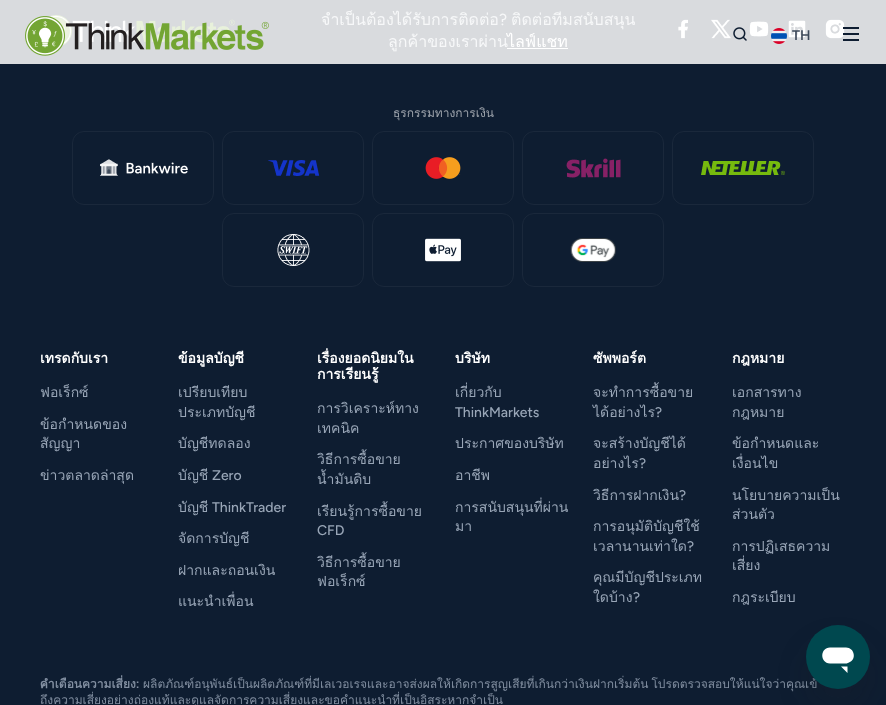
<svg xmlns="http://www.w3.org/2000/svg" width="886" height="705">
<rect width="100%" height="100%" fill="#0e1d31"/>
<rect width="886" height="64" fill="#d9dbde"/>
<image x="48" y="15" width="187" height="32" href="media/1.png"/>
<text x="321" y="25" style="font-family:Loma;font-size:16px;fill:#f7f8f9">จำเป็นต้องได้รับการติดต่อ</text>
<text x="499" y="25" style="font-family:Figtree;font-size:16px;font-weight:300;fill:#f7f8f9">?</text>
<text x="511" y="25" style="font-family:Loma;font-size:16px;fill:#f7f8f9">ติดต่อทีมสนับสนุน</text>
<text x="388" y="47" style="font-family:Loma;font-size:16px;fill:#f7f8f9">ลูกค้าของเราผ่าน</text>
<text x="507" y="47" style="font-family:Loma;font-size:16px;fill:#fff">ไลฟ์แชท</text>
<rect x="507" y="48" width="61" height="1" fill="#fff"/>
<image x="678" y="19" width="10" height="20" href="media/2.png"/>
<image x="711" y="19" width="20" height="20" href="media/3.png"/>
<image x="749" y="21" width="20" height="16" href="media/4.png"/>
<image x="788" y="20" width="18" height="18" href="media/5.png"/>
<image x="825" y="19" width="20" height="20" href="media/6.png"/>
<text x="393" y="117" style="font-family:Loma;font-size:12px;fill:#9fa5ad">ธุรกรรมทางการเงิน</text>
<rect x="72.5" y="131.5" width="141" height="73" rx="11.5" fill="none" stroke="#1a283b"/>
<image x="100" y="159" width="88" height="17" href="media/7.png"/>
<rect x="222.5" y="131.5" width="141" height="73" rx="11.5" fill="none" stroke="#1a283b"/>
<image x="268" y="160" width="52" height="16" href="media/8.png"/>
<rect x="372.5" y="131.5" width="141" height="73" rx="11.5" fill="none" stroke="#1a283b"/>
<image x="425" y="157" width="36" height="22" href="media/9.png"/>
<rect x="522.5" y="131.5" width="141" height="73" rx="11.5" fill="none" stroke="#1a283b"/>
<image x="566" y="158" width="55" height="20" href="media/10.png"/>
<rect x="672.5" y="131.5" width="141" height="73" rx="11.5" fill="none" stroke="#1a283b"/>
<image x="701" y="161" width="84" height="14" href="media/11.png"/>
<rect x="222.5" y="213.5" width="141" height="73" rx="11.5" fill="none" stroke="#1a283b"/>
<image x="277" y="234" width="33" height="32" href="media/12.png"/>
<rect x="372.5" y="213.5" width="141" height="73" rx="11.5" fill="none" stroke="#1a283b"/>
<image x="425" y="238" width="36" height="24" href="media/13.png"/>
<rect x="522.5" y="213.5" width="141" height="73" rx="11.5" fill="none" stroke="#1a283b"/>
<image x="570" y="238" width="46" height="24" href="media/14.png"/>
<text x="40" y="363" style="font-family:Loma;font-size:14px;font-weight:bold;fill:#fff">เทรดกับเรา</text>
<text x="40" y="397" style="font-family:Loma;font-size:14px;fill:#99a6b7">ฟอเร็กซ์</text>
<text x="40" y="429" style="font-family:Loma;font-size:14px;fill:#99a6b7">ข้อกำหนดของ</text>
<text x="40" y="448" style="font-family:Loma;font-size:14px;fill:#99a6b7">สัญญา</text>
<text x="40" y="480" style="font-family:Loma;font-size:14px;fill:#99a6b7">ข่าวตลาดล่าสุด</text>
<text x="178" y="363" style="font-family:Loma;font-size:14px;font-weight:bold;fill:#fff">ข้อมูลบัญชี</text>
<text x="178" y="397" style="font-family:Loma;font-size:14px;fill:#99a6b7">เปรียบเทียบ</text>
<text x="178" y="417" style="font-family:Loma;font-size:14px;fill:#99a6b7">ประเภทบัญชี</text>
<text x="178" y="448" style="font-family:Loma;font-size:14px;fill:#99a6b7">บัญชีทดลอง</text>
<text x="178" y="480" style="font-family:Loma;font-size:14px;fill:#99a6b7">บัญชี</text>
<text x="212" y="480" style="font-family:'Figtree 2';font-size:14px;font-weight:300;fill:#99a6b7">Zero</text>
<text x="178" y="512" style="font-family:Loma;font-size:14px;fill:#99a6b7">บัญชี</text>
<text x="212" y="512" style="font-family:'Figtree 2';font-size:14px;font-weight:300;fill:#99a6b7">ThinkTrader</text>
<text x="178" y="543" style="font-family:Loma;font-size:14px;fill:#99a6b7">จัดการบัญชี</text>
<text x="178" y="575" style="font-family:Loma;font-size:14px;fill:#99a6b7">ฝากและถอนเงิน</text>
<text x="178" y="606" style="font-family:Loma;font-size:14px;fill:#99a6b7">แนะนำเพื่อน</text>
<text x="317" y="363" style="font-family:Loma;font-size:14px;font-weight:bold;fill:#fff">เรื่องยอดนิยมใน</text>
<text x="317" y="379" style="font-family:Loma;font-size:14px;font-weight:bold;fill:#fff">การเรียนรู้</text>
<text x="317" y="413" style="font-family:Loma;font-size:14px;fill:#99a6b7">การวิเคราะห์ทาง</text>
<text x="317" y="433" style="font-family:Loma;font-size:14px;fill:#99a6b7">เทคนิค</text>
<text x="317" y="464" style="font-family:Loma;font-size:14px;fill:#99a6b7">วิธีการซื้อขาย</text>
<text x="317" y="484" style="font-family:Loma;font-size:14px;fill:#99a6b7">น้ำมันดิบ</text>
<text x="317" y="516" style="font-family:Loma;font-size:14px;fill:#99a6b7">เรียนรู้การซื้อขาย</text>
<text x="317" y="535" style="font-family:'Figtree 2';font-size:14px;font-weight:300;fill:#99a6b7">CFD</text>
<text x="317" y="567" style="font-family:Loma;font-size:14px;fill:#99a6b7">วิธีการซื้อขาย</text>
<text x="317" y="586" style="font-family:Loma;font-size:14px;fill:#99a6b7">ฟอเร็กซ์</text>
<text x="455" y="363" style="font-family:Loma;font-size:14px;font-weight:bold;fill:#fff">บริษัท</text>
<text x="455" y="397" style="font-family:Loma;font-size:14px;fill:#99a6b7">เกี่ยวกับ</text>
<text x="455" y="417" style="font-family:'Figtree 2';font-size:14px;font-weight:300;fill:#99a6b7">ThinkMarkets</text>
<text x="455" y="448" style="font-family:Loma;font-size:14px;fill:#99a6b7">ประกาศของบริษัท</text>
<text x="455" y="480" style="font-family:Loma;font-size:14px;fill:#99a6b7">อาชีพ</text>
<text x="455" y="512" style="font-family:Loma;font-size:14px;fill:#99a6b7">การสนับสนุนที่ผ่าน</text>
<text x="455" y="531" style="font-family:Loma;font-size:14px;fill:#99a6b7">มา</text>
<text x="593" y="363" style="font-family:Loma;font-size:14px;font-weight:bold;fill:#fff">ซัพพอร์ต</text>
<text x="593" y="397" style="font-family:Loma;font-size:14px;fill:#99a6b7">จะทำการซื้อขาย</text>
<text x="593" y="417" style="font-family:Loma;font-size:14px;fill:#99a6b7">ได้อย่างไร</text>
<text x="655" y="417" style="font-family:'Figtree 2';font-size:14px;font-weight:300;fill:#99a6b7">?</text>
<text x="593" y="448" style="font-family:Loma;font-size:14px;fill:#99a6b7">จะสร้างบัญชีได้</text>
<text x="593" y="468" style="font-family:Loma;font-size:14px;fill:#99a6b7">อย่างไร</text>
<text x="639" y="468" style="font-family:'Figtree 2';font-size:14px;font-weight:300;fill:#99a6b7">?</text>
<text x="593" y="500" style="font-family:Loma;font-size:14px;fill:#99a6b7">วิธีการฝากเงิน</text>
<text x="679" y="500" style="font-family:'Figtree 2';font-size:14px;font-weight:300;fill:#99a6b7">?</text>
<text x="593" y="531" style="font-family:Loma;font-size:14px;fill:#99a6b7">การอนุมัติบัญชีใช้</text>
<text x="593" y="551" style="font-family:Loma;font-size:14px;fill:#99a6b7">เวลานานเท่าใด</text>
<text x="687" y="551" style="font-family:'Figtree 2';font-size:14px;font-weight:300;fill:#99a6b7">?</text>
<text x="593" y="582" style="font-family:Loma;font-size:14px;fill:#99a6b7">คุณมีบัญชีประเภท</text>
<text x="593" y="602" style="font-family:Loma;font-size:14px;fill:#99a6b7">ใดบ้าง</text>
<text x="633" y="602" style="font-family:'Figtree 2';font-size:14px;font-weight:300;fill:#99a6b7">?</text>
<text x="732" y="363" style="font-family:Loma;font-size:14px;font-weight:bold;fill:#fff">กฎหมาย</text>
<text x="732" y="397" style="font-family:Loma;font-size:14px;fill:#99a6b7">เอกสารทาง</text>
<text x="732" y="417" style="font-family:Loma;font-size:14px;fill:#99a6b7">กฎหมาย</text>
<text x="732" y="448" style="font-family:Loma;font-size:14px;fill:#99a6b7">ข้อกำหนดและ</text>
<text x="732" y="468" style="font-family:Loma;font-size:14px;fill:#99a6b7">เงื่อนไข</text>
<text x="732" y="500" style="font-family:Loma;font-size:14px;fill:#99a6b7">นโยบายความเป็น</text>
<text x="732" y="519" style="font-family:Loma;font-size:14px;fill:#99a6b7">ส่วนตัว</text>
<text x="732" y="551" style="font-family:Loma;font-size:14px;fill:#99a6b7">การปฏิเสธความ</text>
<text x="732" y="570" style="font-family:Loma;font-size:14px;fill:#99a6b7">เสี่ยง</text>
<text x="732" y="602" style="font-family:Loma;font-size:14px;fill:#99a6b7">กฎระเบียบ</text>
<text x="40" y="688" style="font-family:Loma;font-size:12px;font-weight:bold;fill:#828fa1">คำเตือนความเสี่ยง:</text>
<text x="143" y="688" word-spacing="-1" style="font-family:Loma;font-size:12px;fill:#828fa1">ผลิตภัณฑ์อนุพันธ์เป็นผลิตภัณฑ์ที่มีเลเวอเรจและอาจส่งผลให้เกิดการสูญเสียที่เกินกว่าเงินฝากเริ่มต้น โปรดตรวจสอบให้แน่ใจว่าคุณเข้</text>
<text x="40" y="704" style="font-family:Loma;font-size:12px;fill:#828fa1">ถึงความเสี่ยงอย่างถ่องแท้และดูแลจัดการความเสี่ยงและขอคำแนะนำที่เป็นอิสระหากจำเป็น</text>
<image x="25" y="16" width="244" height="40" href="media/15.png"/>
<image x="733" y="27" width="14" height="14" href="media/16.png"/>
<image x="771" y="28" width="16" height="16" href="media/17.png"/>
<text x="792" y="40" style="font-family:Figtree;font-size:14px;font-weight:600;fill:#3e4a5a">TH</text>
<image x="843" y="27" width="16" height="14" href="media/18.png"/>
<rect x="806" y="645" width="64" height="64" rx="32" fill="#24242426" filter="blur(15px)"/>
<circle cx="838" cy="657" r="32" fill="#00484f"/>
<path d="M841 666.5l6.5 6.5v-6.5zm-11-19c-10 0-10.5 15.5 0 16h10.5c3 0 6 .5 8.5-1c8-3 5.5-15-3-15z" fill="#fff"/>
</svg>
